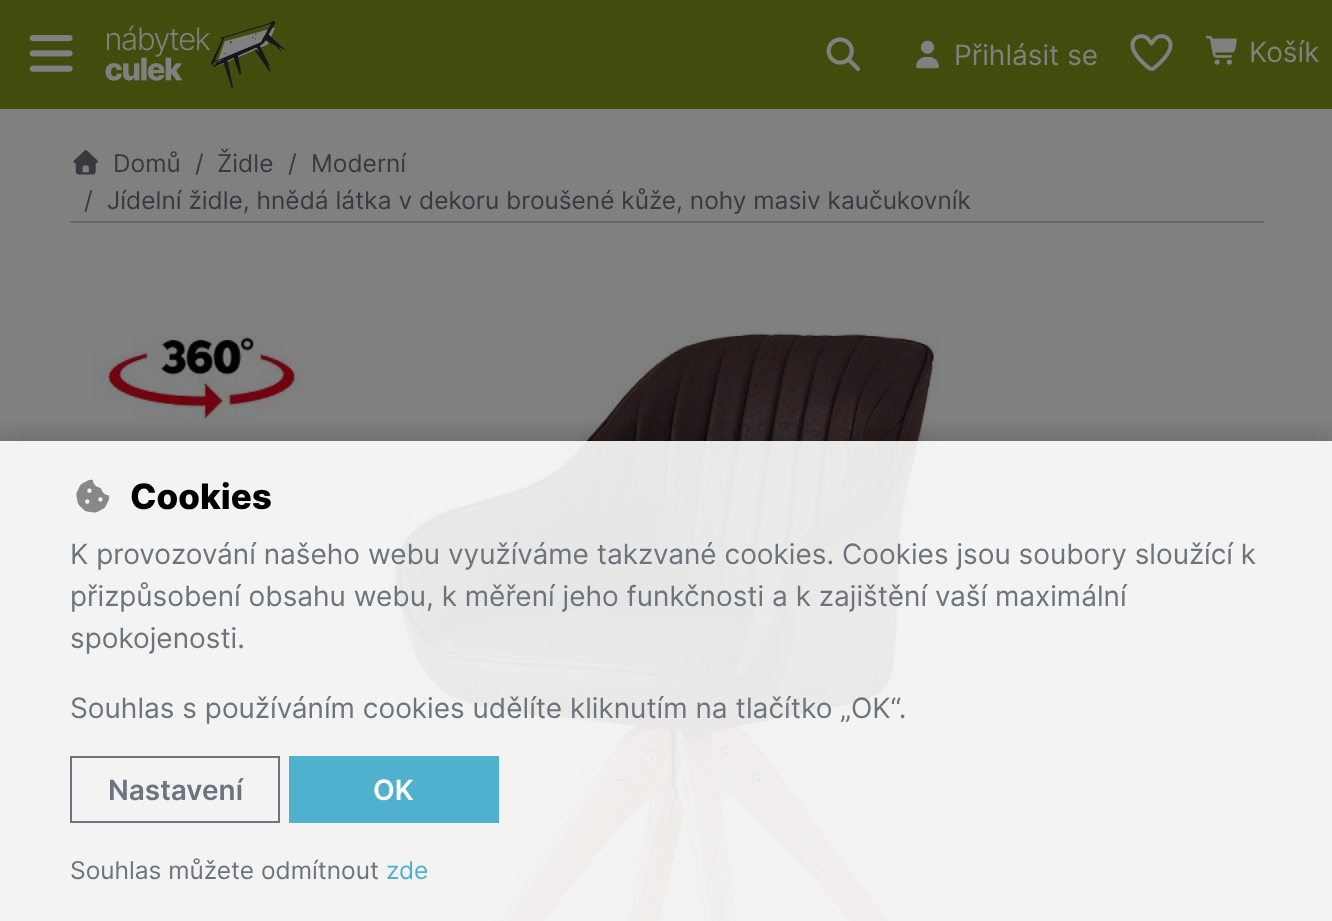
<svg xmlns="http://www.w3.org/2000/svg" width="1332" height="921">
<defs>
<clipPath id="clip1"><rect x="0" y="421" width="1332" height="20"/></clipPath>
</defs>
<rect width="100%" height="100%" fill="#808080"/>
<rect width="1332" height="109" fill="#414c0d"/>
<image x="29" y="35" width="44" height="37" href="media/1.png"/>
<image x="105" y="21" width="181" height="67" href="media/2.png"/>
<image x="826" y="37" width="35" height="34" href="media/3.png"/>
<image x="916" y="40" width="23" height="29" href="media/4.png"/>
<text x="954" y="65" style="font-family:Inter;font-size:28px;fill:#808080">Přihlásit se</text>
<image x="1130" y="34" width="43" height="37" href="media/5.png"/>
<image x="1205" y="35" width="32" height="30" href="media/6.png"/>
<text x="1249" y="62" style="font-family:Inter;font-size:28px;fill:#808080">Košík</text>
<rect x="70" y="221" width="1194" height="2" fill="#676a6d"/>
<image x="73" y="150" width="25" height="25" href="media/7.png"/>
<text x="113" y="172" style="font-family:Inter;font-size:24.5px;fill:#363b3f">Domů</text>
<text x="195" y="172" style="font-family:Inter;font-size:24.5px;fill:#363b3f">/</text>
<text x="217" y="172" style="font-family:Inter;font-size:24.5px;fill:#363b3f">Židle</text>
<text x="288" y="172" style="font-family:Inter;font-size:24.5px;fill:#363b3f">/</text>
<text x="311" y="172" style="font-family:Inter;font-size:24.5px;fill:#363b3f">Moderní</text>
<text x="84" y="209" style="font-family:Inter;font-size:24.5px;fill:#363b3f">/</text>
<text x="107" y="209" style="font-family:Inter;font-size:24.5px;fill:#363b3f">Jídelní židle, hnědá látka v dekoru broušené kůže, nohy masiv kaučukovník</text>
<image x="92" y="332" width="848" height="589" href="media/8.png"/>
<g clip-path="url(#clip1)">
<rect y="441" width="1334" height="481" fill="#00000040" filter="blur(14px)"/>
</g>
<rect y="441" width="1332" height="480" fill="#ffffffe6"/>
<image x="76" y="479" width="34" height="34" href="media/9.png"/>
<text x="130" y="509" style="font-family:Inter;font-size:35px;font-weight:800;fill:#000">Cookies</text>
<text x="70" y="564" style="font-family:Inter;font-size:28px;fill:#6c757d">K provozování našeho webu využíváme takzvané cookies. Cookies jsou soubory sloužící k</text>
<text x="70" y="606" style="font-family:Inter;font-size:28px;fill:#6c757d">přizpůsobení obsahu webu, k měření jeho funkčnosti a k zajištění vaší maximální</text>
<text x="70" y="648" style="font-family:Inter;font-size:28px;fill:#6c757d">spokojenosti.</text>
<text x="70" y="718" style="font-family:Inter;font-size:28px;fill:#6c757d">Souhlas s používáním cookies udělíte kliknutím na tlačítko „OK“.</text>
<rect x="71" y="757" width="208" height="65" fill="none" stroke="#6c757d" stroke-width="2"/>
<text x="108" y="800" style="font-family:Inter;font-size:28px;font-weight:600;fill:#6c757d">Nastavení</text>
<rect x="289" y="756" width="210" height="67" fill="#50b1ce"/>
<text x="373" y="800" style="font-family:Inter;font-size:28px;font-weight:600;fill:#fff">OK</text>
<text x="70" y="879" style="font-family:Inter;font-size:24.5px;fill:#6c757d">Souhlas můžete odmítnout</text>
<text x="386" y="879" style="font-family:Inter;font-size:24.5px;fill:#50b1ce">zde</text>
</svg>
